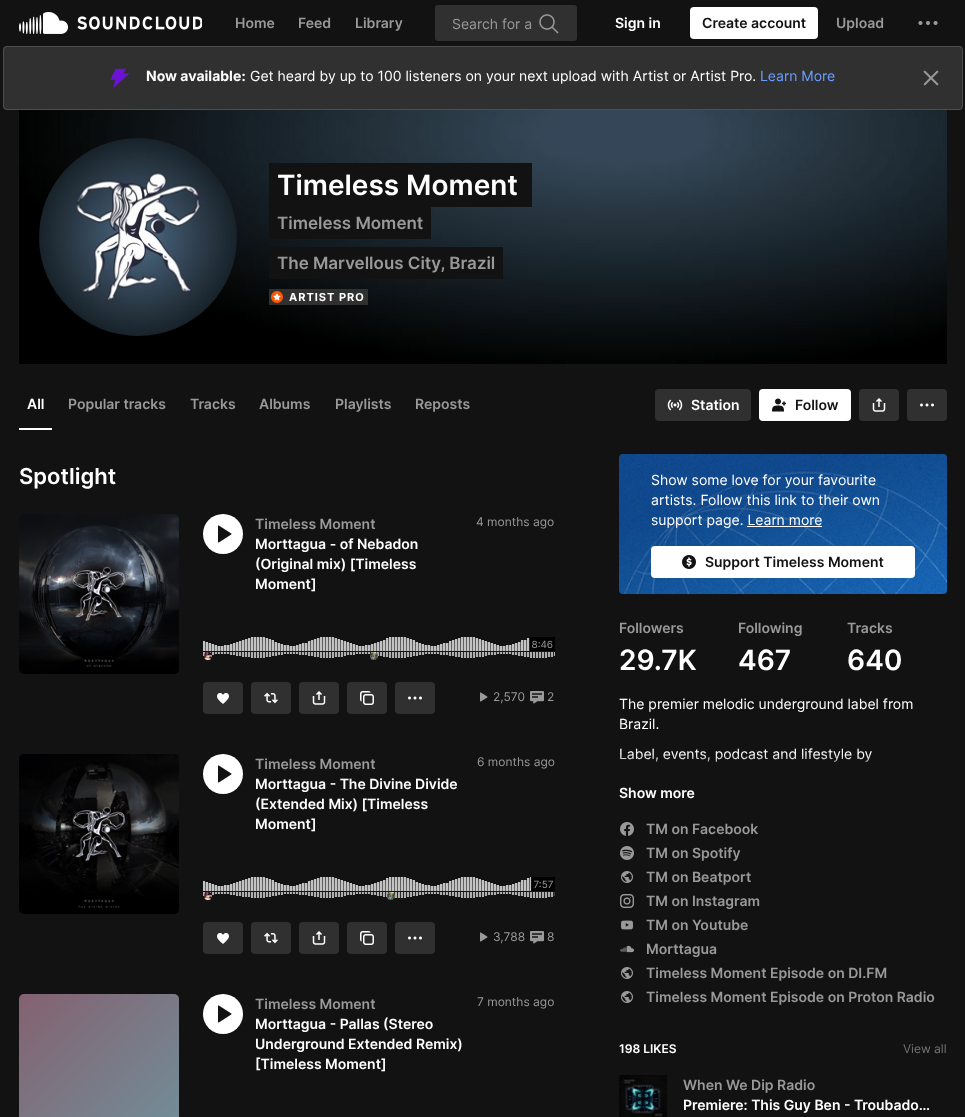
<svg xmlns="http://www.w3.org/2000/svg" width="965" height="1117">
<defs>
<linearGradient id="g1" gradientUnits="userSpaceOnUse" x1="19" y1="994" x2="179" y2="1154"><stop offset="0" stop-color="#846170"/><stop offset="1" stop-color="#70929c"/></linearGradient>
<linearGradient id="g2" gradientUnits="userSpaceOnUse" x1="783" y1="754" x2="783" y2="779"><stop offset="0" stop-color="#121212" stop-opacity="0"/><stop offset="1" stop-color="#121212"/></linearGradient>
</defs>
<rect width="100%" height="100%" fill="#121212"/>
<image x="19" y="12" width="183" height="22" href="media/1.png"/>
<text x="235" y="28" style="font-family:Inter;font-size:14px;font-weight:600;fill:#999">Home</text>
<text x="298" y="28" style="font-family:Inter;font-size:14px;font-weight:600;fill:#999">Feed</text>
<text x="355" y="28" style="font-family:Inter;font-size:14px;font-weight:600;fill:#999">Library</text>
<rect x="435" y="5" width="142" height="36" rx="3" fill="#303030"/>
<text x="452" y="29" style="font-family:Inter;font-size:14px;fill:#999">Search for a</text>
<image x="539" y="14" width="20" height="20" href="media/2.png"/>
<text x="615" y="28" style="font-family:Inter;font-size:14px;font-weight:600;fill:#fff">Sign in</text>
<rect x="690" y="7" width="128" height="32" rx="4" fill="#fff"/>
<text x="702" y="28" style="font-family:Inter;font-size:14px;font-weight:600;fill:#121212">Create account</text>
<text x="836" y="28" style="font-family:Inter;font-size:14px;font-weight:600;fill:#999">Upload</text>
<image x="918" y="21" width="20" height="4" href="media/3.png"/>
<rect x="3" y="46" width="960" height="64" rx="4" fill="#303030"/>
<rect x="3.5" y="46.5" width="959" height="63" rx="3.5" fill="none" stroke="#ffffff26"/>
<image x="110" y="68" width="20" height="20" href="media/4.png"/>
<text x="146" y="81" style="font-family:Inter;font-size:14px;font-weight:bold;fill:#fff">Now available:</text>
<text x="250" y="81" style="font-family:Inter;font-size:14px;fill:#fff">Get heard by up to 100 listeners on your next upload with Artist or Artist Pro.</text>
<text x="760" y="81" style="font-family:Inter;font-size:14px;fill:#699fff">Learn More</text>
<image x="923" y="70" width="16" height="16" href="media/5.png"/>
<image x="19" y="110" width="928" height="254" href="media/6.png"/>
<image x="39" y="138" width="198" height="198" href="media/7.png"/>
<rect x="269" y="163" width="263" height="44" fill="#121212"/>
<text x="277" y="195" style="font-family:Inter;font-size:28px;font-weight:600;fill:#fff">Timeless Moment</text>
<rect x="269" y="207" width="162" height="32" fill="#121212"/>
<text x="277" y="229" style="font-family:Inter;font-size:17px;font-weight:600;fill:#999">Timeless Moment</text>
<rect x="269" y="247" width="234" height="32" fill="#121212"/>
<text x="277" y="269" style="font-family:Inter;font-size:17px;font-weight:600;fill:#999">The Marvellous City, Brazil</text>
<rect x="269" y="289" width="99" height="16" fill="#303030"/>
<image x="271" y="291" width="12" height="12" href="media/8.png"/>
<text x="289" y="301" style="font-family:Inter;font-size:11px;font-weight:bold;letter-spacing:1px;fill:#fff">ARTIST PRO</text>
<rect x="19" y="428" width="33" height="2" fill="#fff"/>
<text x="27" y="409" style="font-family:Inter;font-size:14px;font-weight:600;fill:#fff">All</text>
<text x="68" y="409" style="font-family:Inter;font-size:14px;font-weight:600;fill:#999">Popular tracks</text>
<text x="190" y="409" style="font-family:Inter;font-size:14px;font-weight:600;fill:#999">Tracks</text>
<text x="259" y="409" style="font-family:Inter;font-size:14px;font-weight:600;fill:#999">Albums</text>
<text x="335" y="409" style="font-family:Inter;font-size:14px;font-weight:600;fill:#999">Playlists</text>
<text x="415" y="409" style="font-family:Inter;font-size:14px;font-weight:600;fill:#999">Reposts</text>
<rect x="655" y="389" width="96" height="32" rx="4" fill="#303030"/>
<image x="667" y="399" width="16" height="12" href="media/9.png"/>
<text x="691" y="410" style="font-family:Inter;font-size:14px;font-weight:600;fill:#fff">Station</text>
<rect x="759" y="389" width="92" height="32" rx="4" fill="#fff"/>
<image x="772" y="398" width="14" height="14" href="media/10.png"/>
<text x="795" y="410" style="font-family:Inter;font-size:14px;font-weight:600;fill:#121212">Follow</text>
<rect x="859" y="389" width="40" height="32" rx="4" fill="#303030"/>
<image x="872" y="398" width="14" height="14" href="media/11.png"/>
<rect x="907" y="389" width="40" height="32" rx="4" fill="#303030"/>
<image x="920" y="403" width="14" height="4" href="media/12.png"/>
<text x="19" y="484" style="font-family:Inter;font-size:22px;font-weight:600;fill:#fff">Spotlight</text>
<image x="19" y="514" width="160" height="160" href="media/13.png"/>
<rect x="19.5" y="514.5" width="159" height="159" rx="4.5" fill="none" stroke="#1212121a"/>
<circle cx="223" cy="534" r="20" fill="#fff"/>
<image x="218" y="525" width="14" height="18" href="media/14.png"/>
<text x="255" y="529" style="font-family:Inter;font-size:14px;font-weight:600;fill:#999">Timeless Moment</text>
<text x="255" y="549" style="font-family:Inter;font-size:14px;font-weight:600;fill:#fff">Morttagua - of Nebadon</text>
<text x="255" y="569" style="font-family:Inter;font-size:14px;font-weight:600;fill:#fff">(Original mix) [Timeless</text>
<text x="255" y="589" style="font-family:Inter;font-size:14px;font-weight:600;fill:#fff">Moment]</text>
<text x="476" y="526" style="font-family:Inter;font-size:12px;fill:#999">4 months ago</text>
<image x="203" y="637" width="352" height="21" href="media/15.png"/>
<image x="529" y="637" width="26" height="14" href="media/16.png"/>
<image x="204" y="652" width="174" height="8" href="media/17.png"/>
<rect x="203" y="682" width="40" height="32" rx="4" fill="#303030"/>
<image x="217" y="693" width="12" height="11" href="media/18.png"/>
<rect x="251" y="682" width="40" height="32" rx="4" fill="#303030"/>
<image x="264" y="692" width="14" height="12" href="media/19.png"/>
<rect x="299" y="682" width="40" height="32" rx="4" fill="#303030"/>
<image x="312" y="691" width="14" height="14" href="media/11.png"/>
<rect x="347" y="682" width="40" height="32" rx="4" fill="#303030"/>
<image x="360" y="691" width="14" height="14" href="media/20.png"/>
<rect x="395" y="682" width="40" height="32" rx="4" fill="#303030"/>
<image x="408" y="696" width="14" height="4" href="media/12.png"/>
<image x="480" y="692" width="8" height="10" href="media/21.png"/>
<text x="493" y="701" style="font-family:Inter;font-size:12px;fill:#999">2,570</text>
<image x="530" y="691" width="14" height="13" href="media/22.png"/>
<text x="547" y="701" style="font-family:Inter;font-size:12px;fill:#999">2</text>
<image x="19" y="754" width="160" height="160" href="media/23.png"/>
<circle cx="223" cy="774" r="20" fill="#fff"/>
<image x="218" y="765" width="14" height="18" href="media/14.png"/>
<text x="255" y="769" style="font-family:Inter;font-size:14px;font-weight:600;fill:#999">Timeless Moment</text>
<text x="255" y="789" style="font-family:Inter;font-size:14px;font-weight:600;fill:#fff">Morttagua - The Divine Divide</text>
<text x="255" y="809" style="font-family:Inter;font-size:14px;font-weight:600;fill:#fff">(Extended Mix) [Timeless</text>
<text x="255" y="829" style="font-family:Inter;font-size:14px;font-weight:600;fill:#fff">Moment]</text>
<text x="477" y="766" style="font-family:Inter;font-size:12px;fill:#999">6 months ago</text>
<image x="203" y="877" width="352" height="21" href="media/24.png"/>
<image x="531" y="877" width="24" height="14" href="media/25.png"/>
<image x="204" y="892" width="191" height="8" href="media/26.png"/>
<rect x="203" y="922" width="40" height="32" rx="4" fill="#303030"/>
<image x="217" y="933" width="12" height="11" href="media/18.png"/>
<rect x="251" y="922" width="40" height="32" rx="4" fill="#303030"/>
<image x="264" y="932" width="14" height="12" href="media/19.png"/>
<rect x="299" y="922" width="40" height="32" rx="4" fill="#303030"/>
<image x="312" y="931" width="14" height="14" href="media/11.png"/>
<rect x="347" y="922" width="40" height="32" rx="4" fill="#303030"/>
<image x="360" y="931" width="14" height="14" href="media/20.png"/>
<rect x="395" y="922" width="40" height="32" rx="4" fill="#303030"/>
<image x="408" y="936" width="14" height="4" href="media/12.png"/>
<image x="480" y="932" width="8" height="10" href="media/21.png"/>
<text x="493" y="941" style="font-family:Inter;font-size:12px;fill:#999">3,788</text>
<image x="530" y="931" width="14" height="13" href="media/22.png"/>
<text x="547" y="941" style="font-family:Inter;font-size:12px;fill:#999">8</text>
<rect x="19" y="994" width="160" height="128" rx="5" fill="url(#g1)"/>
<circle cx="223" cy="1014" r="20" fill="#fff"/>
<image x="218" y="1005" width="14" height="18" href="media/14.png"/>
<text x="255" y="1009" style="font-family:Inter;font-size:14px;font-weight:600;fill:#999">Timeless Moment</text>
<text x="255" y="1029" style="font-family:Inter;font-size:14px;font-weight:600;fill:#fff">Morttagua - Pallas (Stereo</text>
<text x="255" y="1049" style="font-family:Inter;font-size:14px;font-weight:600;fill:#fff">Underground Extended Remix)</text>
<text x="255" y="1069" style="font-family:Inter;font-size:14px;font-weight:600;fill:#fff">[Timeless Moment]</text>
<text x="477" y="1006" style="font-family:Inter;font-size:12px;fill:#999">7 months ago</text>
<image x="619" y="454" width="328" height="140" href="media/27.png"/>
<text x="651" y="485" style="font-family:Inter;font-size:14px;fill:#fff">Show some love for your favourite</text>
<text x="651" y="505" style="font-family:Inter;font-size:14px;fill:#fff">artists. Follow this link to their own</text>
<text x="651" y="525" style="font-family:Inter;font-size:14px;fill:#fff">support page. Learn more</text>
<rect x="747" y="526" width="75" height="1" fill="#fff"/>
<rect x="651" y="546" width="264" height="32" rx="4" fill="#fff"/>
<image x="682" y="555" width="14" height="14" href="media/28.png"/>
<text x="705" y="567" style="font-family:Inter;font-size:14px;font-weight:600;fill:#121212">Support Timeless Moment</text>
<text x="619" y="633" style="font-family:Inter;font-size:14px;font-weight:600;fill:#999">Followers</text>
<text x="619" y="670" style="font-family:Inter;font-size:28px;font-weight:600;fill:#fff">29.7K</text>
<text x="738" y="633" style="font-family:Inter;font-size:14px;font-weight:600;fill:#999">Following</text>
<text x="738" y="670" style="font-family:Inter;font-size:28px;font-weight:600;fill:#fff">467</text>
<text x="847" y="633" style="font-family:Inter;font-size:14px;font-weight:600;fill:#999">Tracks</text>
<text x="847" y="670" style="font-family:Inter;font-size:28px;font-weight:600;fill:#fff">640</text>
<text x="619" y="709" style="font-family:Inter;font-size:14px;fill:#fff">The premier melodic underground label from</text>
<text x="619" y="729" style="font-family:Inter;font-size:14px;fill:#fff">Brazil.</text>
<text x="619" y="759" style="font-family:Inter;font-size:14px;fill:#fff">Label, events, podcast and lifestyle by</text>
<rect x="619" y="755" width="251" height="7" fill="url(#g2)"/>
<text x="619" y="798" style="font-family:Inter;font-size:14px;font-weight:600;fill:#fff">Show more</text>
<image x="620" y="822" width="14" height="14" href="media/29.png"/>
<text x="646" y="834" style="font-family:Inter;font-size:14px;font-weight:600;fill:#999">TM on Facebook</text>
<image x="620" y="846" width="14" height="14" href="media/30.png"/>
<text x="646" y="858" style="font-family:Inter;font-size:14px;font-weight:600;fill:#999">TM on Spotify</text>
<image x="621" y="871" width="12" height="12" href="media/31.png"/>
<text x="646" y="882" style="font-family:Inter;font-size:14px;font-weight:600;fill:#999">TM on Beatport</text>
<image x="620" y="894" width="14" height="14" href="media/32.png"/>
<text x="646" y="906" style="font-family:Inter;font-size:14px;font-weight:600;fill:#999">TM on Instagram</text>
<image x="621" y="920" width="12" height="10" href="media/33.png"/>
<text x="646" y="930" style="font-family:Inter;font-size:14px;font-weight:600;fill:#999">TM on Youtube</text>
<image x="620" y="945" width="14" height="8" href="media/34.png"/>
<text x="646" y="954" style="font-family:Inter;font-size:14px;font-weight:600;fill:#999">Morttagua</text>
<image x="621" y="967" width="12" height="12" href="media/31.png"/>
<text x="646" y="978" style="font-family:Inter;font-size:14px;font-weight:600;fill:#999">Timeless Moment Episode on DI.FM</text>
<image x="621" y="991" width="12" height="12" href="media/31.png"/>
<text x="646" y="1002" style="font-family:Inter;font-size:14px;font-weight:600;fill:#999">Timeless Moment Episode on Proton Radio</text>
<text x="619" y="1053" style="font-family:Inter;font-size:12px;font-weight:600;fill:#fff">198 LIKES</text>
<text x="903" y="1053" style="font-family:Inter;font-size:12px;fill:#757575">View all</text>
<image x="619" y="1075" width="48" height="42" href="media/35.png"/>
<text x="683" y="1090" style="font-family:Inter;font-size:14px;font-weight:600;fill:#999">When We Dip Radio</text>
<text x="683" y="1110" style="font-family:Inter;font-size:14px;font-weight:600;fill:#fff">Premiere: This Guy Ben - Troubado…</text>
</svg>
